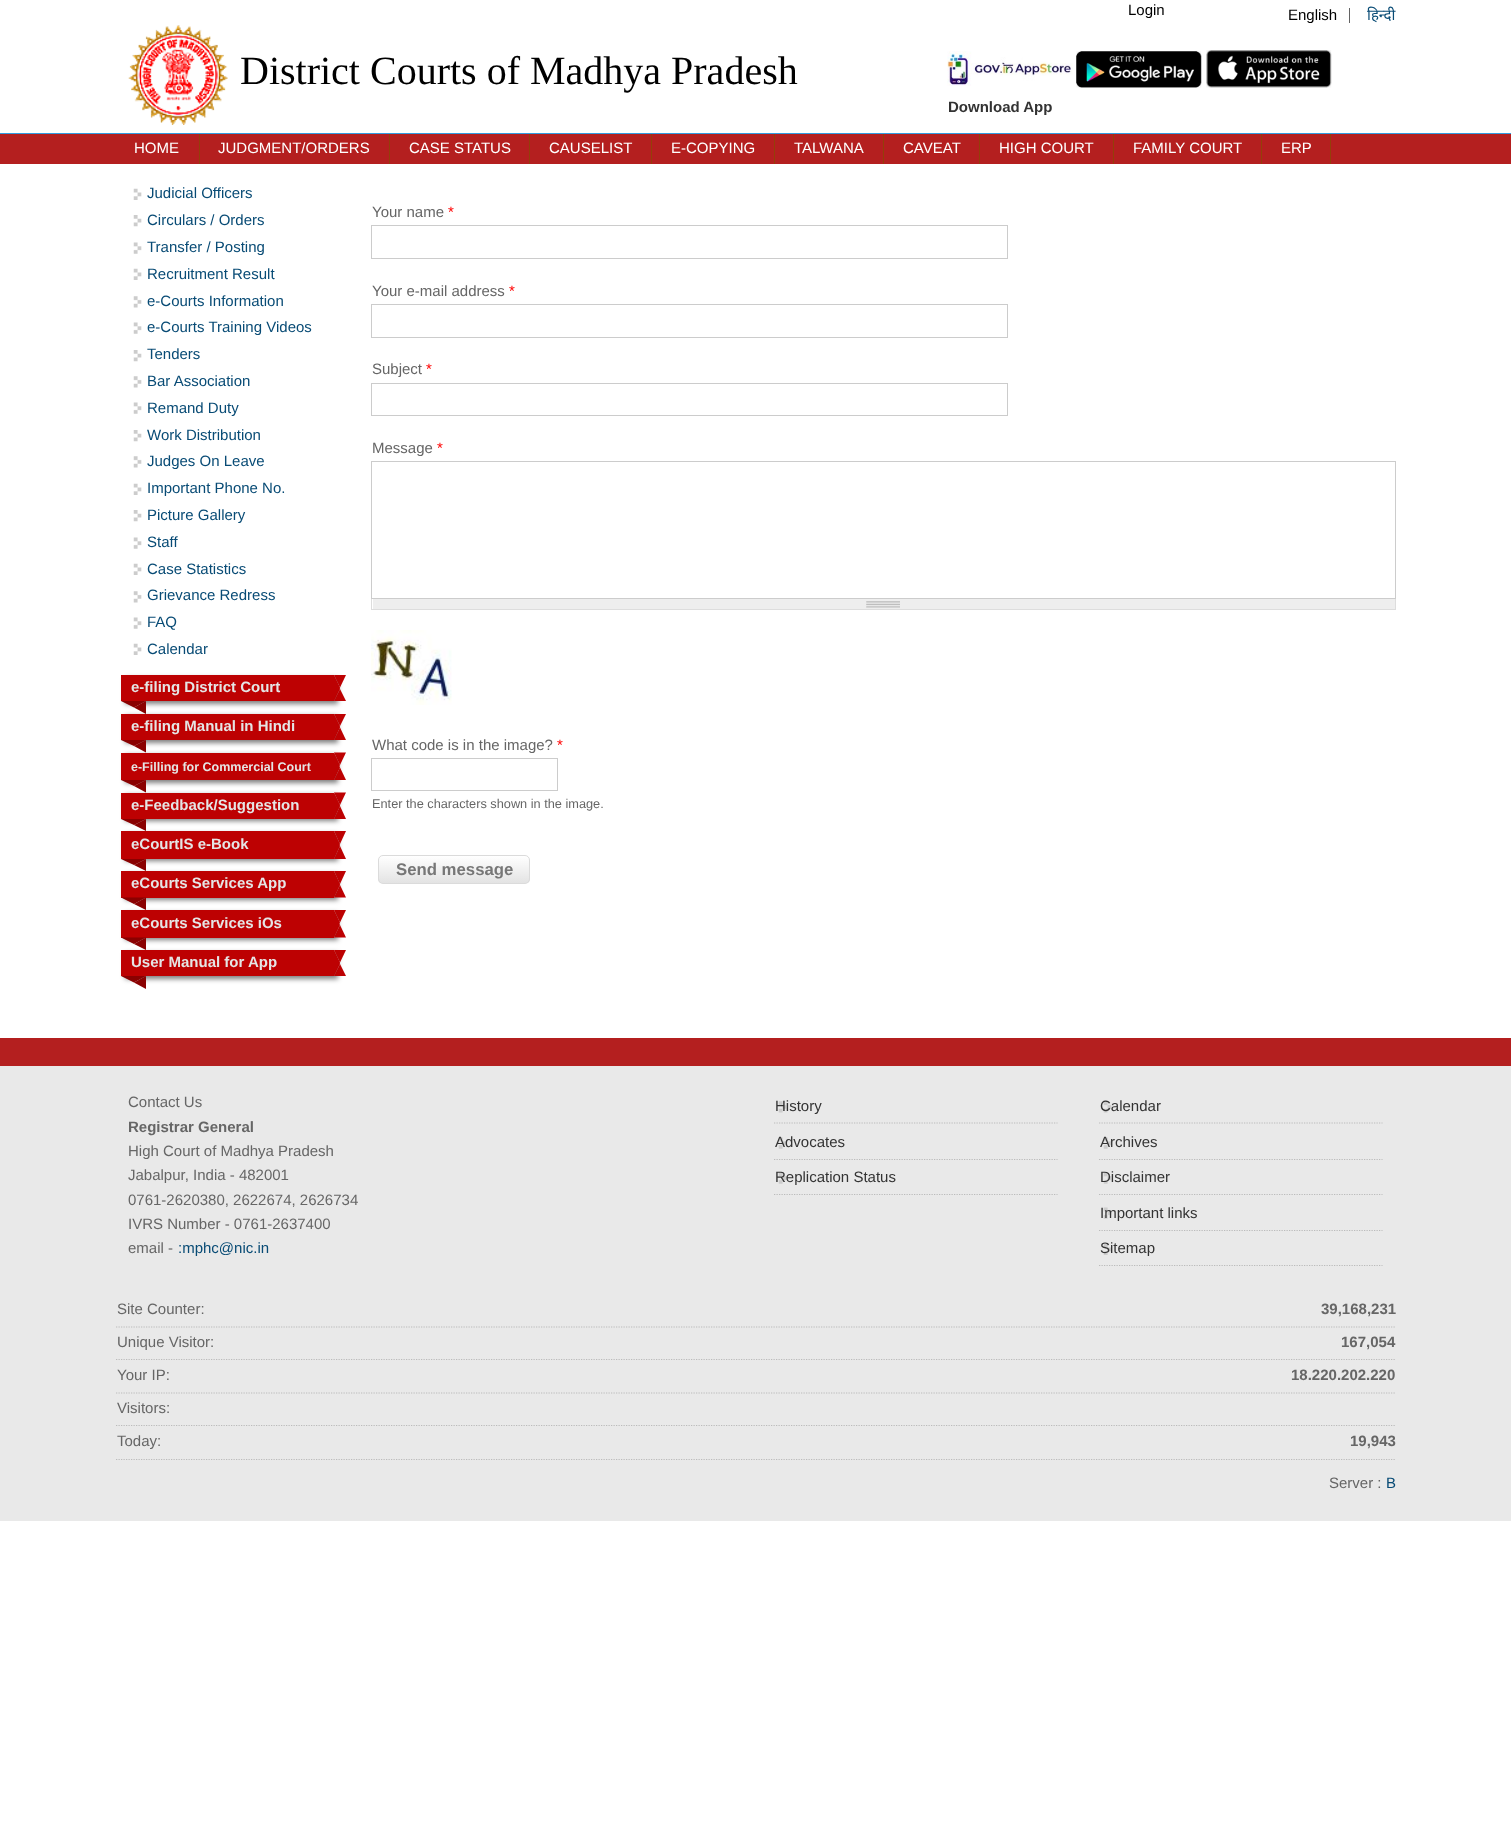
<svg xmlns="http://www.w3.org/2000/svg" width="1511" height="1841">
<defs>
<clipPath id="clip1"><rect x="378" y="855" width="152" height="29" rx="5"/></clipPath>
<linearGradient id="g1" gradientUnits="userSpaceOnUse" x1="454" y1="856" x2="454" y2="883"><stop offset="0" stop-color="#fff"/><stop offset="1" stop-color="#e3e3e3"/></linearGradient>
</defs>
<rect width="100%" height="100%" fill="#fff"/>
<text x="1128" y="15" style="font-family:Liberation Sans;font-size:15px;fill:#000">Login</text>
<rect x="1349" y="8" width="1" height="15" fill="#636363"/>
<text x="1288" y="20" style="font-family:Liberation Sans;font-size:15px;fill:#000">English</text>
<text x="1367" y="20" style="font-family:Noto Sans;font-size:15px;fill:#084b75">हिन्दी</text>
<image x="128" y="25" width="100" height="100" href="media/1.png"/>
<text x="240" y="84" style="font-family:Liberation Serif;font-size:40px;fill:#000">District Courts of Madhya Pradesh</text>
<image x="947" y="51" width="126" height="35" href="media/2.png"/>
<image x="1076" y="51" width="126" height="37" href="media/3.png"/>
<image x="1206" y="50" width="126" height="38" href="media/4.png"/>
<text x="948" y="112" style="font-family:Liberation Sans;font-size:15px;font-weight:bold;fill:#333">Download App</text>
<rect y="134" width="1511" height="30" fill="#b41f1f"/>
<rect y="133" width="1511" height="1" fill="#339cdf"/>
<rect x="199" y="134" width="1" height="30" fill="#943f09"/>
<text x="134" y="153" style="font-family:Liberation Sans;font-size:15px;fill:#fff">HOME</text>
<rect x="389" y="134" width="1" height="30" fill="#943f09"/>
<text x="218" y="153" style="font-family:Liberation Sans;font-size:15px;fill:#fff">JUDGMENT/ORDERS</text>
<rect x="529" y="134" width="1" height="30" fill="#943f09"/>
<text x="409" y="153" style="font-family:Liberation Sans;font-size:15px;fill:#fff">CASE STATUS</text>
<rect x="651" y="134" width="1" height="30" fill="#943f09"/>
<text x="549" y="153" style="font-family:Liberation Sans;font-size:15px;fill:#fff">CAUSELIST</text>
<rect x="774" y="134" width="1" height="30" fill="#943f09"/>
<text x="671" y="153" style="font-family:Liberation Sans;font-size:15px;fill:#fff">E-COPYING</text>
<rect x="883" y="134" width="1" height="30" fill="#943f09"/>
<text x="794" y="153" style="font-family:Liberation Sans;font-size:15px;fill:#fff">TALWANA</text>
<rect x="979" y="134" width="1" height="30" fill="#943f09"/>
<text x="903" y="153" style="font-family:Liberation Sans;font-size:15px;fill:#fff">CAVEAT</text>
<rect x="1113" y="134" width="1" height="30" fill="#943f09"/>
<text x="999" y="153" style="font-family:Liberation Sans;font-size:15px;fill:#fff">HIGH COURT</text>
<rect x="1261" y="134" width="1" height="30" fill="#943f09"/>
<text x="1133" y="153" style="font-family:Liberation Sans;font-size:15px;fill:#fff">FAMILY COURT</text>
<rect x="1330" y="134" width="1" height="30" fill="#943f09"/>
<text x="1281" y="153" style="font-family:Liberation Sans;font-size:15px;fill:#fff">ERP</text>
<image x="133" y="188" width="9" height="12" href="media/5.png"/>
<text x="147" y="198" style="font-family:Liberation Sans;font-size:15px;fill:#084b75">Judicial Officers</text>
<image x="133" y="215" width="9" height="12" href="media/6.png"/>
<text x="147" y="225" style="font-family:Liberation Sans;font-size:15px;fill:#084b75">Circulars / Orders</text>
<image x="133" y="242" width="9" height="12" href="media/7.png"/>
<text x="147" y="252" style="font-family:Liberation Sans;font-size:15px;fill:#084b75">Transfer / Posting</text>
<image x="133" y="268" width="9" height="12" href="media/5.png"/>
<text x="147" y="279" style="font-family:Liberation Sans;font-size:15px;fill:#084b75">Recruitment Result</text>
<image x="133" y="296" width="9" height="12" href="media/8.png"/>
<text x="147" y="306" style="font-family:Liberation Sans;font-size:15px;fill:#084b75">e-Courts Information</text>
<image x="133" y="322" width="9" height="12" href="media/7.png"/>
<text x="147" y="332" style="font-family:Liberation Sans;font-size:15px;fill:#084b75">e-Courts Training Videos</text>
<image x="133" y="350" width="9" height="12" href="media/6.png"/>
<text x="147" y="359" style="font-family:Liberation Sans;font-size:15px;fill:#084b75">Tenders</text>
<image x="133" y="376" width="9" height="12" href="media/8.png"/>
<text x="147" y="386" style="font-family:Liberation Sans;font-size:15px;fill:#084b75">Bar Association</text>
<image x="133" y="402" width="9" height="12" href="media/7.png"/>
<text x="147" y="413" style="font-family:Liberation Sans;font-size:15px;fill:#084b75">Remand Duty</text>
<image x="133" y="430" width="9" height="12" href="media/6.png"/>
<text x="147" y="440" style="font-family:Liberation Sans;font-size:15px;fill:#084b75">Work Distribution</text>
<image x="133" y="456" width="9" height="12" href="media/8.png"/>
<text x="147" y="466" style="font-family:Liberation Sans;font-size:15px;fill:#084b75">Judges On Leave</text>
<image x="133" y="483" width="9" height="12" href="media/5.png"/>
<text x="147" y="493" style="font-family:Liberation Sans;font-size:15px;fill:#084b75">Important Phone No.</text>
<image x="133" y="510" width="9" height="12" href="media/6.png"/>
<text x="147" y="520" style="font-family:Liberation Sans;font-size:15px;fill:#084b75">Picture Gallery</text>
<image x="133" y="537" width="9" height="12" href="media/7.png"/>
<text x="147" y="547" style="font-family:Liberation Sans;font-size:15px;fill:#084b75">Staff</text>
<image x="133" y="563" width="9" height="12" href="media/5.png"/>
<text x="147" y="574" style="font-family:Liberation Sans;font-size:15px;fill:#084b75">Case Statistics</text>
<image x="133" y="591" width="9" height="12" href="media/8.png"/>
<text x="147" y="600" style="font-family:Liberation Sans;font-size:15px;fill:#084b75">Grievance Redress</text>
<image x="133" y="617" width="9" height="12" href="media/7.png"/>
<text x="147" y="627" style="font-family:Liberation Sans;font-size:15px;fill:#084b75">FAQ</text>
<image x="133" y="643" width="9" height="12" href="media/5.png"/>
<text x="147" y="654" style="font-family:Liberation Sans;font-size:15px;fill:#084b75">Calendar</text>
<rect x="125" y="678" width="213" height="26" fill="#00000080" filter="blur(2.5px)"/>
<rect x="121" y="675" width="213" height="26" fill="#bd0102"/>
<path d="M346 701h-12l6-12z" fill="#bd0102"/>
<path d="M334 701v-25l6 13z" fill="#bd0102"/>
<path d="M334 675h12l-6 12.5z" fill="#bd0102"/>
<path d="M334 700v-25l6 12.5z" fill="#bd0102"/>
<text x="131" y="692" style="font-family:Liberation Sans;font-size:15px;font-weight:bold;fill:#e5e5e5">e-filing District Court</text>
<path d="M121 701h25l-12 6.5z" fill="#8a0101"/>
<path d="M146 701v13l-12-6.5z" fill="#8a0101"/>
<rect x="125" y="716" width="213" height="27" fill="#00000080" filter="blur(2.5px)"/>
<rect x="121" y="714" width="213" height="26" fill="#bd0102"/>
<path d="M346 740h-12l6-12.5z" fill="#bd0102"/>
<path d="M334 740v-25l6 12.5z" fill="#bd0102"/>
<path d="M334 714h12l-6 12z" fill="#bd0102"/>
<path d="M334 739v-25l6 12z" fill="#bd0102"/>
<text x="131" y="731" style="font-family:Liberation Sans;font-size:15px;font-weight:bold;fill:#e5e5e5">e-filing Manual in Hindi</text>
<path d="M121 740h25l-12 6z" fill="#8a0101"/>
<path d="M146 740v12.5l-12-6.5z" fill="#8a0101"/>
<rect x="125" y="755" width="213" height="28" fill="#00000080" filter="blur(2.5px)"/>
<rect x="121" y="753" width="213" height="27" fill="#bd0102"/>
<path d="M346 780h-12l6-12.5z" fill="#bd0102"/>
<path d="M334 780v-25l6 12.5z" fill="#bd0102"/>
<path d="M334 752.5h12l-6 12.5z" fill="#bd0102"/>
<path d="M334 777.5v-25l6 12.5z" fill="#bd0102"/>
<text x="131" y="771" style="font-family:Liberation Sans;font-size:12.5px;font-weight:bold;fill:#e5e5e5">e-Filling for Commercial Court</text>
<path d="M121 780h25l-12 6z" fill="#8a0101"/>
<path d="M146 780v12.5l-12-6.5z" fill="#8a0101"/>
<rect x="125" y="795" width="213" height="26" fill="#00000080" filter="blur(2.5px)"/>
<rect x="121" y="793" width="213" height="26" fill="#bd0102"/>
<path d="M346 819h-12l6-13z" fill="#bd0102"/>
<path d="M334 819v-25l6 12z" fill="#bd0102"/>
<path d="M334 792.5h12l-6 12.5z" fill="#bd0102"/>
<path d="M334 817.5v-25l6 12.5z" fill="#bd0102"/>
<text x="131" y="810" style="font-family:Liberation Sans;font-size:15px;font-weight:bold;fill:#e5e5e5">e-Feedback/Suggestion</text>
<path d="M121 819h25l-12 6z" fill="#8a0101"/>
<path d="M146 819v12l-12-6z" fill="#8a0101"/>
<rect x="125" y="834" width="213" height="27" fill="#00000080" filter="blur(2.5px)"/>
<rect x="121" y="831" width="213" height="28" fill="#bd0102"/>
<path d="M346 859h-12l6-13z" fill="#bd0102"/>
<path d="M334 859v-25l6 12z" fill="#bd0102"/>
<path d="M334 831h12l-6 13z" fill="#bd0102"/>
<path d="M334 856v-25l6 13z" fill="#bd0102"/>
<text x="131" y="849" style="font-family:Liberation Sans;font-size:15px;font-weight:bold;fill:#e5e5e5">eCourtIS e-Book</text>
<path d="M121 859h25l-12 6z" fill="#8a0101"/>
<path d="M146 859v12l-12-6z" fill="#8a0101"/>
<rect x="125" y="874" width="213" height="26" fill="#00000080" filter="blur(2.5px)"/>
<rect x="121" y="871" width="213" height="27" fill="#bd0102"/>
<path d="M346 897.5h-12l6-12.5z" fill="#bd0102"/>
<path d="M334 897.5v-25l6 12.5z" fill="#bd0102"/>
<path d="M334 871h12l-6 13z" fill="#bd0102"/>
<path d="M334 896v-25l6 13z" fill="#bd0102"/>
<text x="131" y="888" style="font-family:Liberation Sans;font-size:15px;font-weight:bold;fill:#e5e5e5">eCourts Services App</text>
<path d="M121 897.5h25l-12 6.5z" fill="#8a0101"/>
<path d="M146 897.5v12.5l-12-6z" fill="#8a0101"/>
<rect x="125" y="913" width="213" height="27" fill="#00000080" filter="blur(2.5px)"/>
<rect x="121" y="910" width="213" height="28" fill="#bd0102"/>
<path d="M346 937.5h-12l6-12.5z" fill="#bd0102"/>
<path d="M334 937.5v-25l6 12.5z" fill="#bd0102"/>
<path d="M334 910h12l-6 12.5z" fill="#bd0102"/>
<path d="M334 935v-25l6 12.5z" fill="#bd0102"/>
<text x="131" y="928" style="font-family:Liberation Sans;font-size:15px;font-weight:bold;fill:#e5e5e5">eCourts Services iOs</text>
<path d="M121 937.5h25l-12 6.5z" fill="#8a0101"/>
<path d="M146 937.5v12.5l-12-6z" fill="#8a0101"/>
<rect x="125" y="953" width="213" height="26" fill="#00000080" filter="blur(2.5px)"/>
<rect x="121" y="950" width="213" height="26" fill="#bd0102"/>
<path d="M346 976h-12l6-12z" fill="#bd0102"/>
<path d="M334 976v-25l6 13z" fill="#bd0102"/>
<path d="M334 950h12l-6 12.5z" fill="#bd0102"/>
<path d="M334 975v-25l6 12.5z" fill="#bd0102"/>
<text x="131" y="967" style="font-family:Liberation Sans;font-size:15px;font-weight:bold;fill:#e5e5e5">User Manual for App</text>
<path d="M121 976h25l-12 6.5z" fill="#8a0101"/>
<path d="M146 976v13l-12-6.5z" fill="#8a0101"/>
<text x="372" y="217" style="font-family:Liberation Sans;font-size:15px;fill:#666">Your name</text>
<text x="448" y="217" style="font-family:Liberation Sans;font-size:15px;fill:#f00">*</text>
<rect x="371.5" y="225.5" width="636" height="33" fill="none" stroke="#ccc"/>
<text x="372" y="296" style="font-family:Liberation Sans;font-size:15px;fill:#666">Your e-mail address</text>
<text x="509" y="296" style="font-family:Liberation Sans;font-size:15px;fill:#f00">*</text>
<rect x="371.5" y="304.5" width="636" height="33" fill="none" stroke="#ccc"/>
<text x="372" y="374" style="font-family:Liberation Sans;font-size:15px;fill:#666">Subject</text>
<text x="426" y="374" style="font-family:Liberation Sans;font-size:15px;fill:#f00">*</text>
<rect x="371.5" y="383.5" width="636" height="32" fill="none" stroke="#ccc"/>
<text x="372" y="453" style="font-family:Liberation Sans;font-size:15px;fill:#666">Message</text>
<text x="437" y="453" style="font-family:Liberation Sans;font-size:15px;fill:#f00">*</text>
<rect x="371.5" y="461.5" width="1024" height="137" fill="none" stroke="#ccc"/>
<rect x="373" y="599" width="1022" height="10" fill="#eee"/>
<image x="866" y="601" width="34" height="7" href="media/9.png"/>
<rect x="1395" y="599" width="1" height="11" fill="#ddd"/>
<rect x="371" y="609" width="1025" height="1" fill="#ddd"/>
<rect x="371" y="599" width="1" height="11" fill="#ddd"/>
<image x="371" y="630" width="81" height="75" href="media/10.png"/>
<text x="372" y="750" style="font-family:Liberation Sans;font-size:15px;fill:#666">What code is in the image?</text>
<text x="557" y="750" style="font-family:Liberation Sans;font-size:15px;fill:#f00">*</text>
<rect x="371.5" y="758.5" width="186" height="32" fill="none" stroke="#ccc"/>
<text x="372" y="808" style="font-family:Liberation Sans;font-size:12.75px;fill:#666">Enter the characters shown in the image.</text>
<g clip-path="url(#clip1)">
<rect x="378" y="856" width="152" height="27" fill="url(#g1)"/>
</g>
<rect x="378.5" y="855.5" width="151" height="28" rx="4.5" fill="none" stroke="#dbdbdb"/>
<text x="396" y="875" style="font-family:Liberation Sans;font-size:16.75px;font-weight:bold;fill:#777">Send message</text>
<rect y="1066" width="1511" height="455" fill="#e9e9e9"/>
<rect y="1038" width="1511" height="28" fill="#b41f1f"/>
<text x="128" y="1107" style="font-family:Liberation Sans;font-size:15px;fill:#666">Contact Us</text>
<text x="128" y="1132" style="font-family:Liberation Sans;font-size:15px;font-weight:bold;fill:#666">Registrar General</text>
<text x="128" y="1156" style="font-family:Liberation Sans;font-size:15px;fill:#666">High Court of Madhya Pradesh</text>
<text x="128" y="1180" style="font-family:Liberation Sans;font-size:15px;fill:#666">Jabalpur, India - 482001</text>
<text x="128" y="1205" style="font-family:Liberation Sans;font-size:15px;fill:#666">0761-2620380, 2622674, 2626734</text>
<text x="128" y="1229" style="font-family:Liberation Sans;font-size:15px;fill:#666">IVRS Number - 0761-2637400</text>
<text x="128" y="1253" style="font-family:Liberation Sans;font-size:15px;fill:#666">email -</text>
<text x="178" y="1253" style="font-family:Liberation Sans;font-size:15px;fill:#084b75">:mphc@nic.in</text>
<image x="778" y="1101" width="9" height="12" href="media/11.png"/>
<path d="M774 1123h283.5" fill="none" stroke="#bbb" stroke-width="1.2" stroke-dasharray="1.25 1.25"/>
<text x="775" y="1111" style="font-family:Liberation Sans;font-size:15px;fill:#333">History</text>
<image x="778" y="1137" width="9" height="12" href="media/12.png"/>
<path d="M774 1159.5h283.5" fill="none" stroke="#bbb" stroke-width="1.2" stroke-dasharray="1.25 1.25"/>
<text x="775" y="1147" style="font-family:Liberation Sans;font-size:15px;fill:#333">Advocates</text>
<image x="778" y="1172" width="9" height="12" href="media/12.png"/>
<path d="M774 1194.5h283.5" fill="none" stroke="#bbb" stroke-width="1.2" stroke-dasharray="1.25 1.25"/>
<text x="775" y="1182" style="font-family:Liberation Sans;font-size:15px;fill:#333">Replication Status</text>
<image x="1103" y="1101" width="9" height="12" href="media/11.png"/>
<path d="M1099 1123h283.5" fill="none" stroke="#bbb" stroke-width="1.2" stroke-dasharray="1.25 1.25"/>
<text x="1100" y="1111" style="font-family:Liberation Sans;font-size:15px;fill:#333">Calendar</text>
<image x="1103" y="1137" width="9" height="12" href="media/12.png"/>
<path d="M1099 1159.5h283.5" fill="none" stroke="#bbb" stroke-width="1.2" stroke-dasharray="1.25 1.25"/>
<text x="1100" y="1147" style="font-family:Liberation Sans;font-size:15px;fill:#333">Archives</text>
<image x="1103" y="1172" width="9" height="12" href="media/12.png"/>
<path d="M1099 1194.5h283.5" fill="none" stroke="#bbb" stroke-width="1.2" stroke-dasharray="1.25 1.25"/>
<text x="1100" y="1182" style="font-family:Liberation Sans;font-size:15px;fill:#333">Disclaimer</text>
<image x="1103" y="1207" width="9" height="12" href="media/12.png"/>
<path d="M1099 1230.5h283.5" fill="none" stroke="#bbb" stroke-width="1.2" stroke-dasharray="1.25 1.25"/>
<text x="1100" y="1218" style="font-family:Liberation Sans;font-size:15px;fill:#333">Important links</text>
<image x="1103" y="1243" width="9" height="12" href="media/13.png"/>
<path d="M1099 1265.5h283.5" fill="none" stroke="#bbb" stroke-width="1.2" stroke-dasharray="1.25 1.25"/>
<text x="1100" y="1253" style="font-family:Liberation Sans;font-size:15px;fill:#333">Sitemap</text>
<path d="M116 1327h1280" fill="none" stroke="#bbb" stroke-width="1.2" stroke-dasharray="1.25 1.25"/>
<text x="117" y="1314" style="font-family:Liberation Sans;font-size:15px;fill:#666">Site Counter:</text>
<text x="1321" y="1314" style="font-family:Liberation Sans;font-size:15px;font-weight:bold;fill:#666">39,168,231</text>
<path d="M116 1359.5h1280" fill="none" stroke="#bbb" stroke-width="1.2" stroke-dasharray="1.25 1.25"/>
<text x="117" y="1347" style="font-family:Liberation Sans;font-size:15px;fill:#666">Unique Visitor:</text>
<text x="1341" y="1347" style="font-family:Liberation Sans;font-size:15px;font-weight:bold;fill:#666">167,054</text>
<path d="M116 1393h1280" fill="none" stroke="#bbb" stroke-width="1.2" stroke-dasharray="1.25 1.25"/>
<text x="117" y="1380" style="font-family:Liberation Sans;font-size:15px;fill:#666">Your IP:</text>
<text x="1291" y="1380" style="font-family:Liberation Sans;font-size:15px;font-weight:bold;fill:#666">18.220.202.220</text>
<path d="M116 1425.5h1280" fill="none" stroke="#bbb" stroke-width="1.2" stroke-dasharray="1.25 1.25"/>
<text x="117" y="1413" style="font-family:Liberation Sans;font-size:15px;fill:#666">Visitors:</text>
<path d="M116 1459.5h1280" fill="none" stroke="#bbb" stroke-width="1.2" stroke-dasharray="1.25 1.25"/>
<text x="117" y="1446" style="font-family:Liberation Sans;font-size:15px;fill:#666">Today:</text>
<text x="1350" y="1446" style="font-family:Liberation Sans;font-size:15px;font-weight:bold;fill:#666">19,943</text>
<text x="1329" y="1488" style="font-family:Liberation Sans;font-size:15px;fill:#666">Server :</text>
<text x="1386" y="1488" style="font-family:Liberation Sans;font-size:15px;fill:#084b75">B</text>
</svg>
